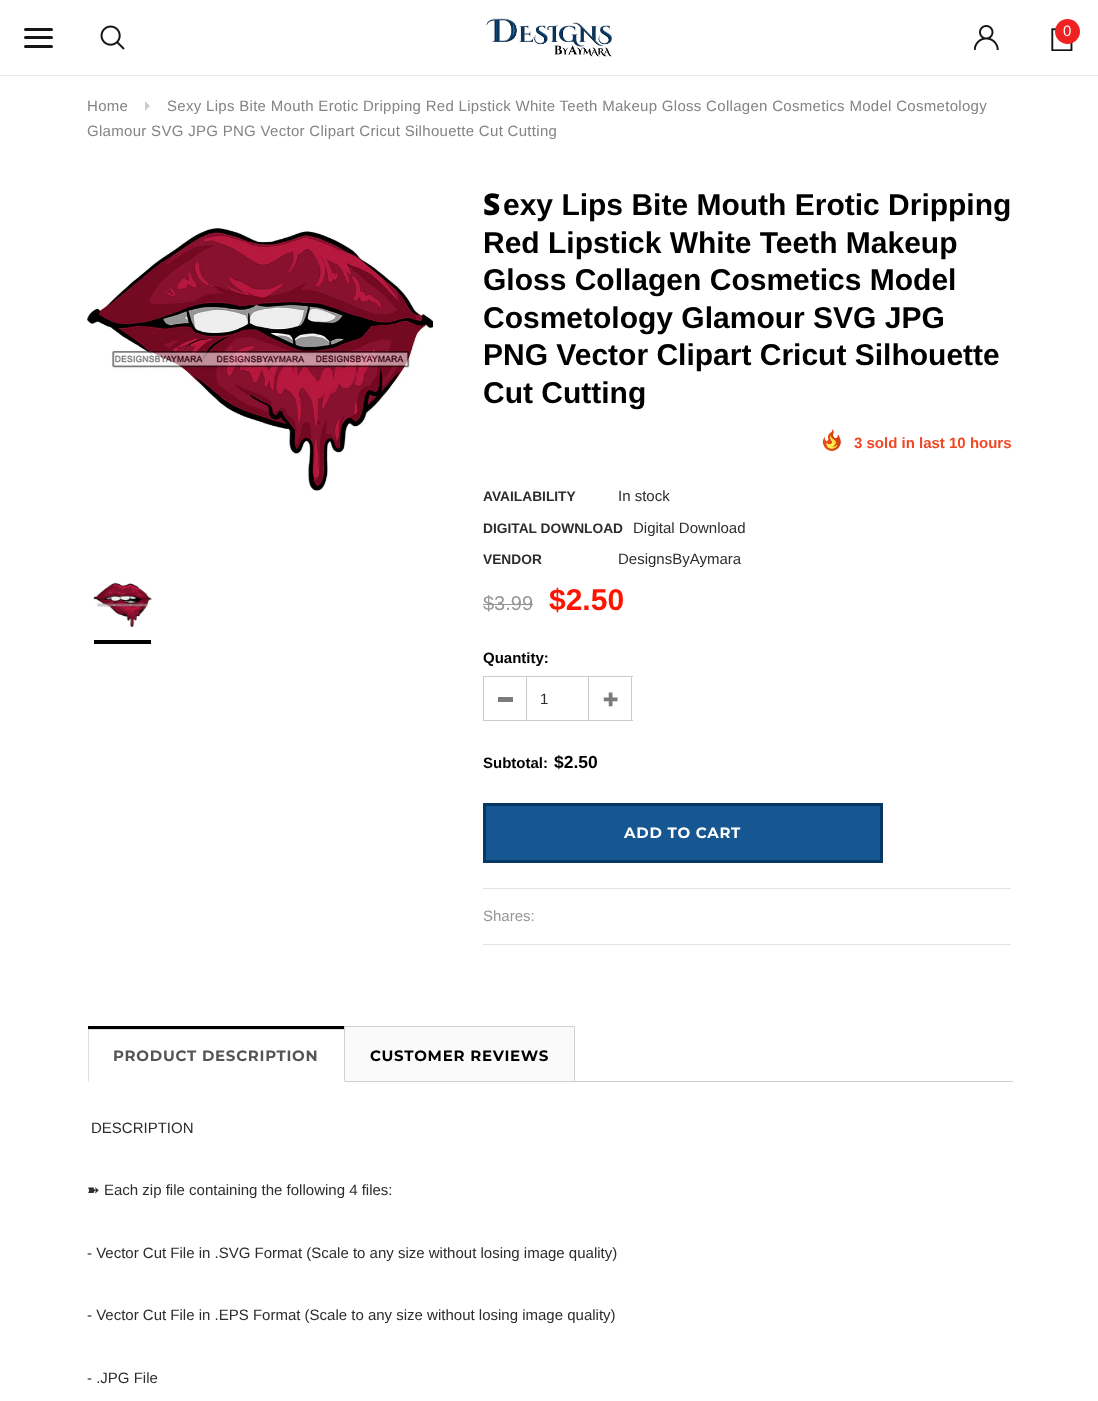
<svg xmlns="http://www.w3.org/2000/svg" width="1098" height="1401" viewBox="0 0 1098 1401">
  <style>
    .t1 { font: 15px Arimo; letter-spacing: 0.3px; fill: #fff; }
    .t2 { font: 15px Arimo; letter-spacing: 0.3px; fill: #848484; }
    .t3 { font: 900 30px Noto Sans; fill: #000; }
    .t4 { font: bold 30px Arimo; fill: #000; }
    .t5 { font: bold 15px Arimo; fill: #f04723; }
    .t6 { font: bold 13.75px Arimo; fill: #2d2d2d; }
    .t7 { font: 15px Arimo; fill: #2d2d2d; }
    .t8 { font: 20px Arimo; fill: #969696; }
    .t9 { font: bold 30px Arimo; fill: #ff1400; }
    .t10 { font: bold 15px Arimo; fill: #000; }
    .t11 { font: bold 17.5px Arimo; fill: #000; }
    .t12 { font: bold 15px Montserrat; letter-spacing: 0.75px; fill: #fff; }
    .t13 { font: 15px Arimo; fill: #969696; }
    .t14 { font: bold 15px Montserrat; letter-spacing: 0.75px; fill: #555; }
    .t15 { font: bold 15px Montserrat; letter-spacing: 0.75px; fill: #000; }
    .t16 { font: 15px DejaVu Sans; fill: #2d2d2d; }
  </style>
  <rect width="100%" height="100%" fill="#fff"/>
  <path d="M0 75V76H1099V1V75Z" fill="#ebebeb"/>
  <rect x="24" y="36" width="29" height="3" rx="1.5" fill="#161616"/>
  <rect x="24" y="28" width="29" height="3" rx="1.5" fill="#161616"/>
  <rect x="24" y="45" width="29" height="3" rx="1.5" fill="#161616"/>
  <image x="100" y="25" width="25" height="25" href="images/1.png"/>
  <image x="486" y="18" width="126" height="39" href="images/2.png"/>
  <image x="974" y="25" width="25" height="25" href="images/3.png"/>
  <image x="1051" y="23" width="22" height="28" href="images/4.png"/>
  <circle cx="1067.5" cy="31.5" r="12.5" fill="#f02121"/>
  <text x="1063" y="36" class="t1">0</text>
  <text x="87" y="111" class="t2">Home</text>
  <path d="M145 111V101L150 106Z" fill="#cbcbcb"/>
  <text x="167" y="111" class="t2">Sexy Lips Bite Mouth Erotic Dripping Red Lipstick White Teeth Makeup Gloss Collagen Cosmetics Model Cosmetology</text>
  <text x="87" y="136" class="t2">Glamour SVG JPG PNG Vector Clipart Cricut Silhouette Cut Cutting</text>
  <image x="87" y="228" width="346" height="263" href="images/5.png"/>
  <rect x="94" y="640" width="57" height="4" fill="#000"/>
  <image x="93" y="582" width="59" height="46" href="images/6.png"/>
  <text x="483" y="215" class="t3">S</text>
  <text x="503" y="215" class="t4">exy Lips Bite Mouth Erotic Dripping</text>
  <text x="483" y="253" class="t4">Red Lipstick White Teeth Makeup</text>
  <text x="483" y="290" class="t4">Gloss Collagen Cosmetics Model</text>
  <text x="483" y="328" class="t4">Cosmetology Glamour SVG JPG</text>
  <text x="483" y="365" class="t4">PNG Vector Clipart Cricut Silhouette</text>
  <text x="483" y="403" class="t4">Cut Cutting</text>
  <image x="822" y="429" width="20" height="23" href="images/7.png"/>
  <text x="854" y="448" class="t5">3 sold in last 10 hours</text>
  <text x="483" y="501" class="t6">AVAILABILITY</text>
  <text x="618" y="501" class="t7">In stock</text>
  <text x="483" y="533" class="t6">DIGITAL DOWNLOAD</text>
  <text x="633" y="533" class="t7">Digital Download</text>
  <text x="483" y="564" class="t6">VENDOR</text>
  <text x="618" y="564" class="t7">DesignsByAymara</text>
  <text x="483" y="610" class="t8">$3.99</text>
  <rect x="483" y="604" width="50" height="1" fill="#969696"/>
  <text x="549" y="610" class="t9">$2.50</text>
  <text x="483" y="663" class="t10">Quantity:</text>
  <rect x="498" y="697" width="15" height="5" fill="#7b7b7b"/>
  <rect x="483" y="676" width="43" height="1" fill="#cbcbcb"/>
  <rect x="483" y="720" width="43" height="1" fill="#cbcbcb"/>
  <rect x="483" y="676" width="1" height="45" fill="#cbcbcb"/>
  <rect x="526.5" y="676.5" width="62" height="44" fill="none" stroke="#cbcbcb"/>
  <text x="540" y="704" class="t7">1</text>
  <image x="603" y="692" width="15" height="15" href="images/8.png"/>
  <rect x="589" y="676" width="44" height="1" fill="#cbcbcb"/>
  <rect x="631" y="676" width="1" height="45" fill="#cbcbcb"/>
  <rect x="589" y="720" width="44" height="1" fill="#cbcbcb"/>
  <text x="483" y="768" class="t10">Subtotal:</text>
  <text x="554" y="768" class="t11">$2.50</text>
  <rect x="484.5" y="804.5" width="397" height="57" fill="#165792" stroke="#073763" stroke-width="3"/>
  <text x="624" y="838" class="t12">ADD TO CART</text>
  <rect x="483" y="888" width="528" height="1" fill="#e3e3e3"/>
  <rect x="483" y="944" width="528" height="1" fill="#e3e3e3"/>
  <text x="483" y="921" class="t13">Shares:</text>
  <rect x="345" y="1081" width="668" height="1" fill="#d0d0d0"/>
  <rect x="88" y="1026" width="257" height="3" fill="#000"/>
  <rect x="88" y="1029" width="257" height="1" fill="#ddd"/>
  <path d="M345 1029V1082L344 1081V1030Z" fill="#ddd"/>
  <path d="M88 1082V1029L89 1030V1081Z" fill="#ddd"/>
  <text x="113" y="1061" class="t14">PRODUCT DESCRIPTION</text>
  <rect x="345" y="1027" width="229" height="54" fill="#fafafa"/>
  <rect x="344" y="1026" width="231" height="1" fill="#d0d0d0"/>
  <rect x="574" y="1026" width="1" height="55" fill="#d0d0d0"/>
  <rect x="344" y="1026" width="1" height="55" fill="#d0d0d0"/>
  <text x="370" y="1061" class="t15">CUSTOMER REVIEWS</text>
  <text x="91" y="1133" class="t7">DESCRIPTION</text>
  <text x="87" y="1195" class="t16">➽</text>
  <text x="104" y="1195" class="t7">Each zip file containing the following 4 files:</text>
  <text x="87" y="1258" class="t7">- Vector Cut File in .SVG Format (Scale to any size without losing image quality)</text>
  <text x="87" y="1320" class="t7">- Vector Cut File in .EPS Format (Scale to any size without losing image quality)</text>
  <text x="87" y="1383" class="t7">- .JPG File</text>
</svg>
